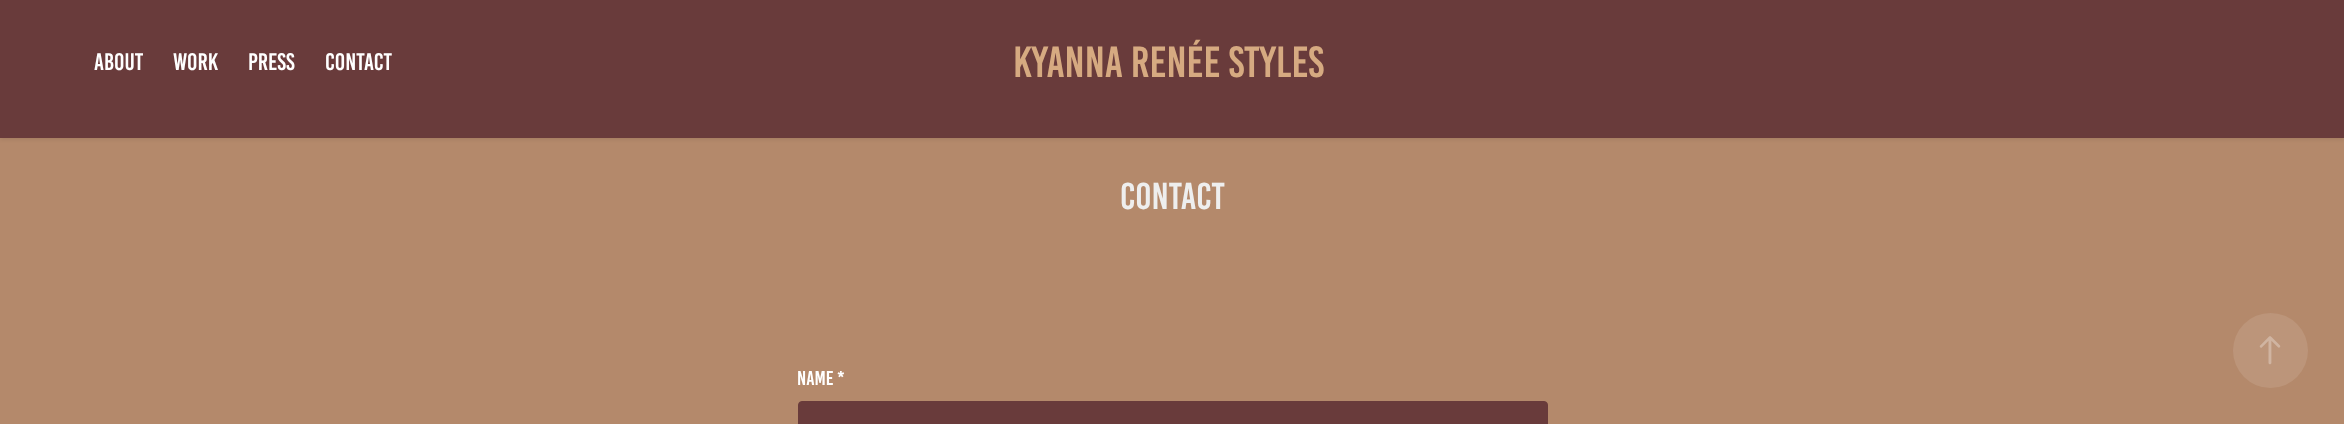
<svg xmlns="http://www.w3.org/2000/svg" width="2344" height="424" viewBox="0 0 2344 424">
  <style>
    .t1 { font: 24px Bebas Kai; fill: #fff; }
    .t2 { font: 43.75px Bebas Kai; fill: #d6aa81; }
    .t3 { font: 37.5px Bebas Kai; fill: #eee; }
    .t4 { font: 20px Bebas Kai; fill: #fff; }
  </style>
  <rect width="100%" height="100%" fill="#b4896b"/>
  <rect x="0" y="1" width="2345" height="138" fill="#0000001a" filter="blur(2px)"/>
  <rect x="0" y="0" width="2344" height="138" fill="#693b3b"/>
  <text x="94" y="70" class="t1">ABOUT</text>
  <text x="173" y="70" class="t1">WORK</text>
  <text x="248" y="70" class="t1">PRESS</text>
  <text x="325" y="70" class="t1">CONTACT</text>
  <text x="1013" y="77" class="t2">Kyanna Renée Styles</text>
  <text x="1120" y="209" class="t3">Contact</text>
  <text x="797" y="385" class="t4">Name *</text>
  <rect x="798.5" y="401.5" width="749" height="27" rx="3.5" fill="#693b3b" stroke="#693b3b"/>
  <circle cx="2270.5" cy="350.5" r="37.5" fill="#bc957a"/>
  <image x="2259" y="336" width="22" height="29" href="images/1.png"/>
</svg>
